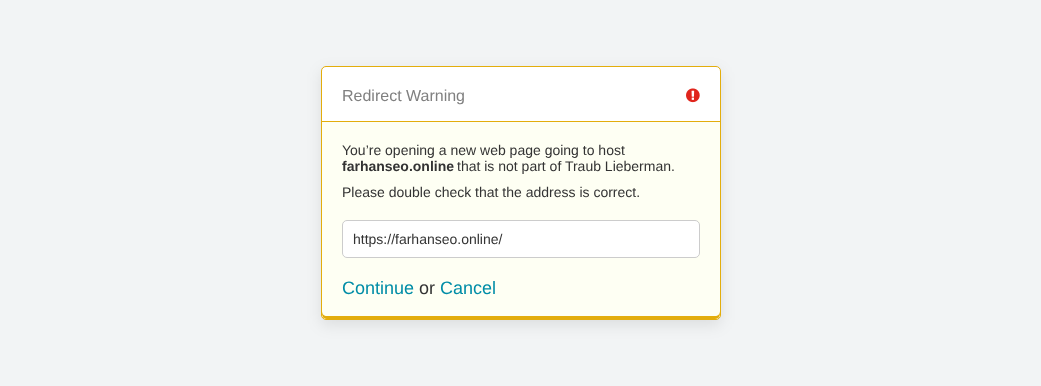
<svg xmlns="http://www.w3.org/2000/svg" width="1041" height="386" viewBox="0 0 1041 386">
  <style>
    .t1 { font: 16px Liberation Sans; fill: #808080; }
    .t2 { font: 14px Liberation Sans; fill: #333; }
    .t3 { font: bold 14px Liberation Sans; fill: #333; }
    .t4 { font: 18px Liberation Sans; fill: #008da7; }
    .t5 { font: 18px Liberation Sans; fill: #333; }
  </style>
  <rect width="100%" height="100%" fill="#f2f4f5"/>
  <rect x="321" y="71" width="400" height="254" rx="5" fill="#00000017" filter="blur(7.5px)"/>
  <rect x="321.5" y="66.5" width="399" height="253" rx="4.5" fill="#fff" stroke="#e3ad0c"/>
  <text x="342" y="101" class="t1">Redirect Warning</text>
  <image x="686" y="88" width="14" height="15" href="images/1.png"/>
  <path d="M322 121H720V314C720 317 718 319 715 319H327C324 319 322 317 322 314Z" fill="#fefff3"/>
  <path d="M322 311C322 315 322 319 327 319H715C720 319 720 315 720 311C720 314 718 316 715 316H327C324 316 322 314 322 311Z" fill="#e3ad0c"/>
  <rect x="322" y="121" width="398" height="1" fill="#e3ad0c"/>
  <text x="342" y="155" class="t2">You’re opening a new web page going to host</text>
  <text x="342" y="171" class="t3">farhanseo.online</text>
  <text x="457" y="171" class="t2">that is not part of Traub Lieberman.</text>
  <text x="342" y="197" class="t2">Please double check that the address is correct.</text>
  <rect x="342.5" y="220.5" width="357" height="37" rx="4.5" fill="#fff" stroke="#ccc"/>
  <text x="353" y="244" class="t2">https://farhanseo.online/</text>
  <text x="342" y="294" class="t4">Continue</text>
  <text x="419" y="294" class="t5">or</text>
  <text x="440" y="294" class="t4">Cancel</text>
</svg>
